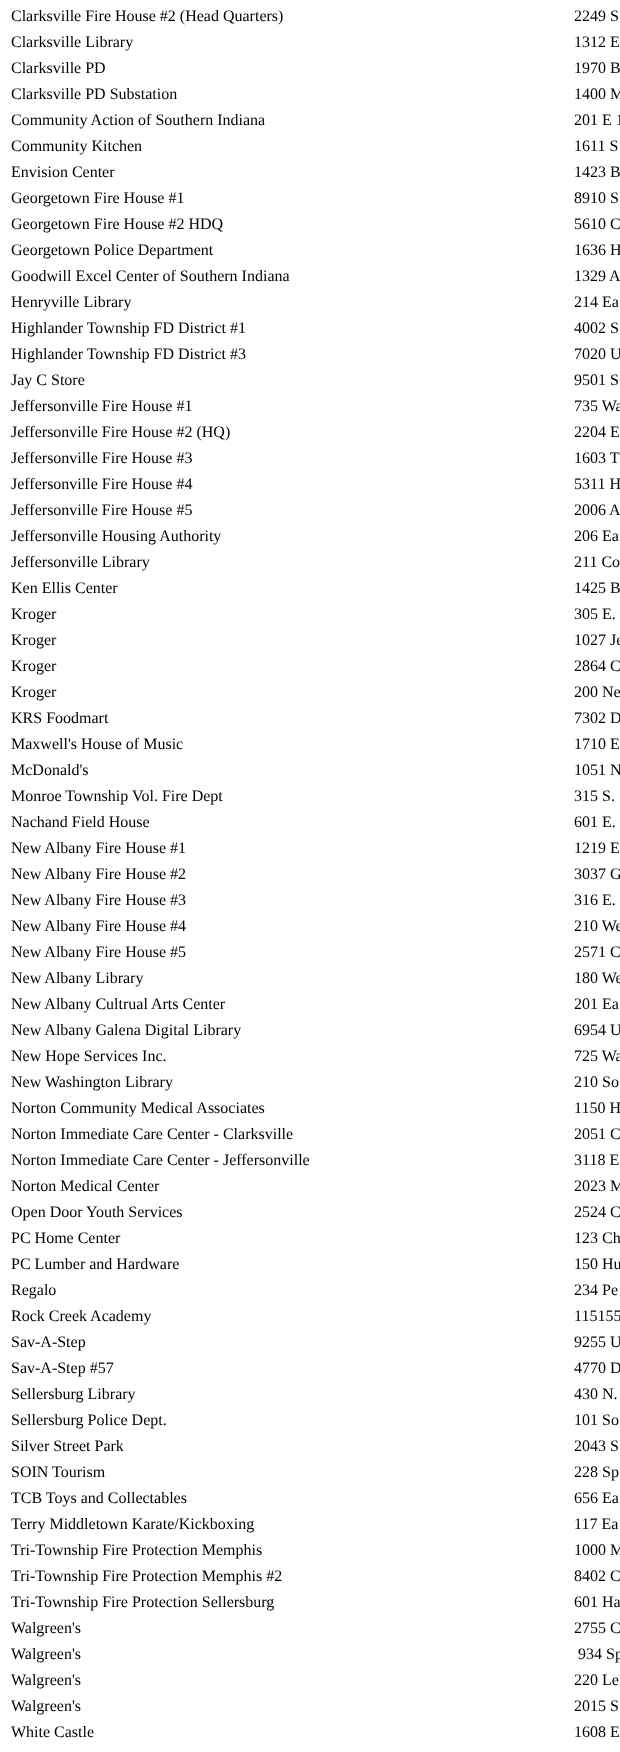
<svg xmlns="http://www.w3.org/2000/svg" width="620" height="1752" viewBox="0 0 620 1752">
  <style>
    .t1 { font: 16px Liberation Serif; fill: #000; }
  </style>
  <rect width="100%" height="100%" fill="#fff"/>
  <text x="11" y="21" class="t1">Clarksville Fire House #2 (Head Quarters)</text>
  <text x="574" y="21" class="t1">2249 S</text>
  <text x="11" y="47" class="t1">Clarksville Library</text>
  <text x="574" y="47" class="t1">1312 E</text>
  <text x="11" y="73" class="t1">Clarksville PD</text>
  <text x="574" y="73" class="t1">1970 B</text>
  <text x="11" y="99" class="t1">Clarksville PD Substation</text>
  <text x="574" y="99" class="t1">1400 M</text>
  <text x="11" y="125" class="t1">Community Action of Southern Indiana</text>
  <text x="574" y="125" class="t1">201 E 1</text>
  <text x="11" y="151" class="t1">Community Kitchen</text>
  <text x="574" y="151" class="t1">1611 S</text>
  <text x="11" y="177" class="t1">Envision Center</text>
  <text x="574" y="177" class="t1">1423 B</text>
  <text x="11" y="203" class="t1">Georgetown Fire House #1</text>
  <text x="574" y="203" class="t1">8910 S</text>
  <text x="11" y="229" class="t1">Georgetown Fire House #2 HDQ</text>
  <text x="574" y="229" class="t1">5610 C</text>
  <text x="11" y="255" class="t1">Georgetown Police Department</text>
  <text x="574" y="255" class="t1">1636 H</text>
  <text x="11" y="281" class="t1">Goodwill Excel Center of Southern Indiana</text>
  <text x="574" y="281" class="t1">1329 A</text>
  <text x="11" y="307" class="t1">Henryville Library</text>
  <text x="574" y="307" class="t1">214 Ea</text>
  <text x="11" y="333" class="t1">Highlander Township FD District #1</text>
  <text x="574" y="333" class="t1">4002 S</text>
  <text x="11" y="359" class="t1">Highlander Township FD District #3</text>
  <text x="574" y="359" class="t1">7020 U</text>
  <text x="11" y="385" class="t1">Jay C Store</text>
  <text x="574" y="385" class="t1">9501 S</text>
  <text x="11" y="411" class="t1">Jeffersonville Fire House #1</text>
  <text x="574" y="411" class="t1">735 Wa</text>
  <text x="11" y="437" class="t1">Jeffersonville Fire House #2 (HQ)</text>
  <text x="574" y="437" class="t1">2204 E</text>
  <text x="11" y="463" class="t1">Jeffersonville Fire House #3</text>
  <text x="574" y="463" class="t1">1603 T</text>
  <text x="11" y="489" class="t1">Jeffersonville Fire House #4</text>
  <text x="574" y="489" class="t1">5311 H</text>
  <text x="11" y="515" class="t1">Jeffersonville Fire House #5</text>
  <text x="574" y="515" class="t1">2006 A</text>
  <text x="11" y="541" class="t1">Jeffersonville Housing Authority</text>
  <text x="574" y="541" class="t1">206 Ea</text>
  <text x="11" y="567" class="t1">Jeffersonville Library</text>
  <text x="574" y="567" class="t1">211 Co</text>
  <text x="11" y="593" class="t1">Ken Ellis Center</text>
  <text x="574" y="593" class="t1">1425 B</text>
  <text x="11" y="619" class="t1">Kroger</text>
  <text x="574" y="619" class="t1">305 E.</text>
  <text x="11" y="645" class="t1">Kroger</text>
  <text x="574" y="645" class="t1">1027 Je</text>
  <text x="11" y="671" class="t1">Kroger</text>
  <text x="574" y="671" class="t1">2864 C</text>
  <text x="11" y="697" class="t1">Kroger</text>
  <text x="574" y="697" class="t1">200 Ne</text>
  <text x="11" y="723" class="t1">KRS Foodmart</text>
  <text x="574" y="723" class="t1">7302 D</text>
  <text x="11" y="749" class="t1">Maxwell's House of Music</text>
  <text x="574" y="749" class="t1">1710 E</text>
  <text x="11" y="775" class="t1">McDonald's</text>
  <text x="574" y="775" class="t1">1051 N</text>
  <text x="11" y="801" class="t1">Monroe Township Vol. Fire Dept</text>
  <text x="574" y="801" class="t1">315 S.</text>
  <text x="11" y="827" class="t1">Nachand Field House</text>
  <text x="574" y="827" class="t1">601 E.</text>
  <text x="11" y="853" class="t1">New Albany Fire House #1</text>
  <text x="574" y="853" class="t1">1219 E</text>
  <text x="11" y="879" class="t1">New Albany Fire House #2</text>
  <text x="574" y="879" class="t1">3037 G</text>
  <text x="11" y="905" class="t1">New Albany Fire House #3</text>
  <text x="574" y="905" class="t1">316 E.</text>
  <text x="11" y="931" class="t1">New Albany Fire House #4</text>
  <text x="574" y="931" class="t1">210 We</text>
  <text x="11" y="957" class="t1">New Albany Fire House #5</text>
  <text x="574" y="957" class="t1">2571 C</text>
  <text x="11" y="983" class="t1">New Albany Library</text>
  <text x="574" y="983" class="t1">180 We</text>
  <text x="11" y="1009" class="t1">New Albany Cultrual Arts Center</text>
  <text x="574" y="1009" class="t1">201 Ea</text>
  <text x="11" y="1035" class="t1">New Albany Galena Digital Library</text>
  <text x="574" y="1035" class="t1">6954 U</text>
  <text x="11" y="1061" class="t1">New Hope Services Inc.</text>
  <text x="574" y="1061" class="t1">725 Wa</text>
  <text x="11" y="1087" class="t1">New Washington Library</text>
  <text x="574" y="1087" class="t1">210 So</text>
  <text x="11" y="1113" class="t1">Norton Community Medical Associates</text>
  <text x="574" y="1113" class="t1">1150 H</text>
  <text x="11" y="1139" class="t1">Norton Immediate Care Center - Clarksville</text>
  <text x="574" y="1139" class="t1">2051 C</text>
  <text x="11" y="1165" class="t1">Norton Immediate Care Center - Jeffersonville</text>
  <text x="574" y="1165" class="t1">3118 E</text>
  <text x="11" y="1191" class="t1">Norton Medical Center</text>
  <text x="574" y="1191" class="t1">2023 M</text>
  <text x="11" y="1217" class="t1">Open Door Youth Services</text>
  <text x="574" y="1217" class="t1">2524 C</text>
  <text x="11" y="1243" class="t1">PC Home Center</text>
  <text x="574" y="1243" class="t1">123 Ch</text>
  <text x="11" y="1269" class="t1">PC Lumber and Hardware</text>
  <text x="574" y="1269" class="t1">150 Hu</text>
  <text x="11" y="1295" class="t1">Regalo</text>
  <text x="574" y="1295" class="t1">234 Pe</text>
  <text x="11" y="1321" class="t1">Rock Creek Academy</text>
  <text x="574" y="1321" class="t1">115155</text>
  <text x="11" y="1347" class="t1">Sav-A-Step</text>
  <text x="574" y="1347" class="t1">9255 U</text>
  <text x="11" y="1373" class="t1">Sav-A-Step #57</text>
  <text x="574" y="1373" class="t1">4770 D</text>
  <text x="11" y="1399" class="t1">Sellersburg Library</text>
  <text x="574" y="1399" class="t1">430 N.</text>
  <text x="11" y="1425" class="t1">Sellersburg Police Dept.</text>
  <text x="574" y="1425" class="t1">101 So</text>
  <text x="11" y="1451" class="t1">Silver Street Park</text>
  <text x="574" y="1451" class="t1">2043 S</text>
  <text x="11" y="1477" class="t1">SOIN Tourism</text>
  <text x="574" y="1477" class="t1">228 Sp</text>
  <text x="11" y="1503" class="t1">TCB Toys and Collectables</text>
  <text x="574" y="1503" class="t1">656 Ea</text>
  <text x="11" y="1529" class="t1">Terry Middletown Karate/Kickboxing</text>
  <text x="574" y="1529" class="t1">117 Ea</text>
  <text x="11" y="1555" class="t1">Tri-Township Fire Protection Memphis</text>
  <text x="574" y="1555" class="t1">1000 M</text>
  <text x="11" y="1581" class="t1">Tri-Township Fire Protection Memphis #2</text>
  <text x="574" y="1581" class="t1">8402 C</text>
  <text x="11" y="1607" class="t1">Tri-Township Fire Protection Sellersburg</text>
  <text x="574" y="1607" class="t1">601 Ha</text>
  <text x="11" y="1633" class="t1">Walgreen's</text>
  <text x="574" y="1633" class="t1">2755 C</text>
  <text x="11" y="1659" class="t1">Walgreen's</text>
  <text x="578" y="1659" class="t1">934 Sp</text>
  <text x="11" y="1685" class="t1">Walgreen's</text>
  <text x="574" y="1685" class="t1">220 Le</text>
  <text x="11" y="1711" class="t1">Walgreen's</text>
  <text x="574" y="1711" class="t1">2015 S</text>
  <text x="11" y="1737" class="t1">White Castle</text>
  <text x="574" y="1737" class="t1">1608 E</text>
</svg>
